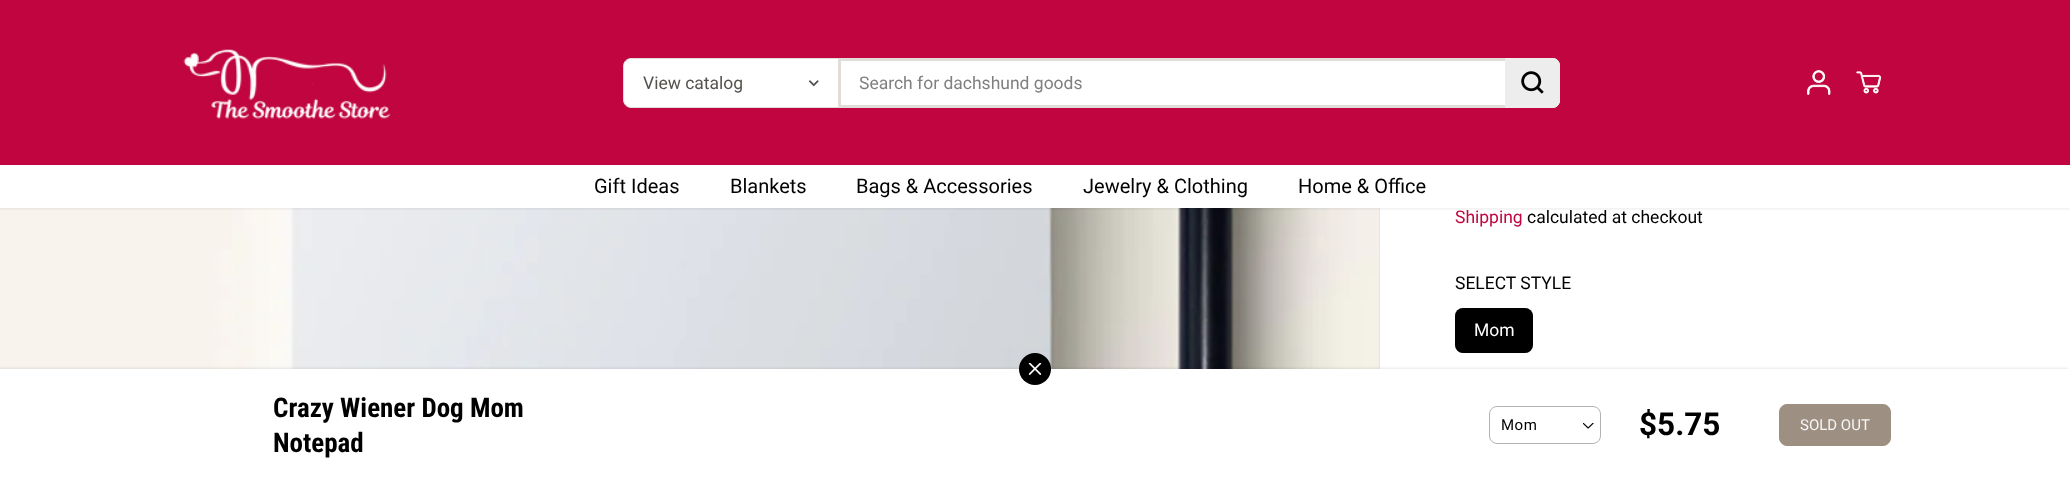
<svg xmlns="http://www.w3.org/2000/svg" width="2070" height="482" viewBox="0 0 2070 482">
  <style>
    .t1 { font: 17.5px Roboto; fill: #55524e; }
    .t2 { font: 17.5px Roboto; fill: #808080; }
    .t3 { font: 20px Roboto; fill: #000; }
    .t4 { font: 17.5px Roboto; fill: #c00540; }
    .t5 { font: 17.5px Roboto; fill: #000; }
    .t6 { font: 17.5px Roboto; fill: #fff; }
    .t7 { font: bold 27px Roboto Condensed; fill: #000; }
    .t8 { font: 15px Roboto; letter-spacing: 0.5px; fill: #000; }
    .t9 { font: bold 31.5px Roboto; fill: #000; }
    .t10 { font: 15px Roboto; fill: #f7f7f7; }
  </style>
  <defs>
    <clipPath id="clip1"><rect x="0" y="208" width="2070" height="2"/></clipPath>
  </defs>
  <rect width="100%" height="100%" fill="#fff"/>
  <rect x="0" y="0" width="2070" height="165" fill="#c00540"/>
  <rect x="1379" y="208" width="1" height="161" fill="#e6e6e6"/>
  <rect x="1378" y="208" width="1" height="161" fill="#f3efec"/>
  <image x="0" y="208" width="1379" height="161" href="images/6.png"/>
  <g clip-path="url(#clip1)">
    <rect x="0" y="3" width="2070" height="207" fill="#0000000d" filter="blur(1px)"/>
  </g>
  <image x="183" y="49" width="208" height="70" href="images/1.png"/>
  <path d="M631 58.5H838.5V107.5H631C627 107.5 623.5 104 623.5 100V66C623.5 62 627 58.5 631 58.5Z" fill="#fff" stroke="#e1dcd8"/>
  <text x="643" y="89" class="t1">View catalog</text>
  <image x="809" y="80" width="10" height="7" href="images/2.png"/>
  <path d="M838 58H1552C1556.5 58 1560 61.5 1560 66V100C1560 104.5 1556.5 108 1552 108H838Z" fill="#fff"/>
  <path d="M838 58V108H1552C1556 108 1560 104 1560 100V66C1560 62 1556 58 1552 58ZM841 61V105H1557V61Z" fill="#e1dcd8" fill-rule="evenodd"/>
  <text x="859" y="89" class="t2">Search for dachshund goods</text>
  <path d="M1505 58H1552C1556.5 58 1560 61.5 1560 66V100C1560 104.5 1556.5 108 1552 108H1505Z" fill="#ededed"/>
  <image x="1521" y="71" width="23" height="23" href="images/3.png"/>
  <image x="1807" y="70" width="24" height="25" href="images/4.png"/>
  <image x="1856" y="71" width="25" height="23" href="images/5.png"/>
  <rect x="0" y="207" width="2070" height="1" fill="#fff"/>
  <text x="594" y="193" class="t3">Gift Ideas</text>
  <text x="730" y="193" class="t3">Blankets</text>
  <text x="856" y="193" class="t3">Bags &amp; Accessories</text>
  <text x="1083" y="193" class="t3">Jewelry &amp; Clothing</text>
  <text x="1298" y="193" class="t3">Home &amp; Office</text>
  <text x="1455" y="223" class="t4">Shipping</text>
  <text x="1527" y="223" class="t5">calculated at checkout</text>
  <text x="1455" y="289" class="t5">SELECT STYLE</text>
  <rect x="1455" y="308" width="78" height="45" rx="8" fill="#000"/>
  <rect x="1455.5" y="308.5" width="77" height="44" rx="7.5" fill="none" stroke="#0000004d"/>
  <text x="1474" y="336" class="t6">Mom</text>
  <rect x="-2" y="368" width="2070" height="113" fill="#00000017" filter="blur(1px)"/>
  <rect x="0" y="369" width="2069" height="113" fill="#fff"/>
  <text x="273" y="417" class="t7">Crazy Wiener Dog Mom</text>
  <text x="273" y="452" class="t7">Notepad</text>
  <circle cx="1035" cy="369" r="16" fill="#000"/>
  <image x="1028" y="363" width="14" height="12" href="images/7.png"/>
  <image x="1583" y="423" width="11" height="6" href="images/8.png"/>
  <rect x="1489.5" y="406.5" width="111" height="37" rx="7.5" fill="none" stroke="#b3b3b3"/>
  <text x="1501" y="430" class="t8">Mom</text>
  <text x="1639" y="435" class="t9">$5.75</text>
  <rect x="1779.5" y="404.5" width="111" height="41" rx="7.5" fill="#9e8f83" stroke="#9e8f83"/>
  <text x="1800" y="430" class="t10">SOLD OUT</text>
</svg>
